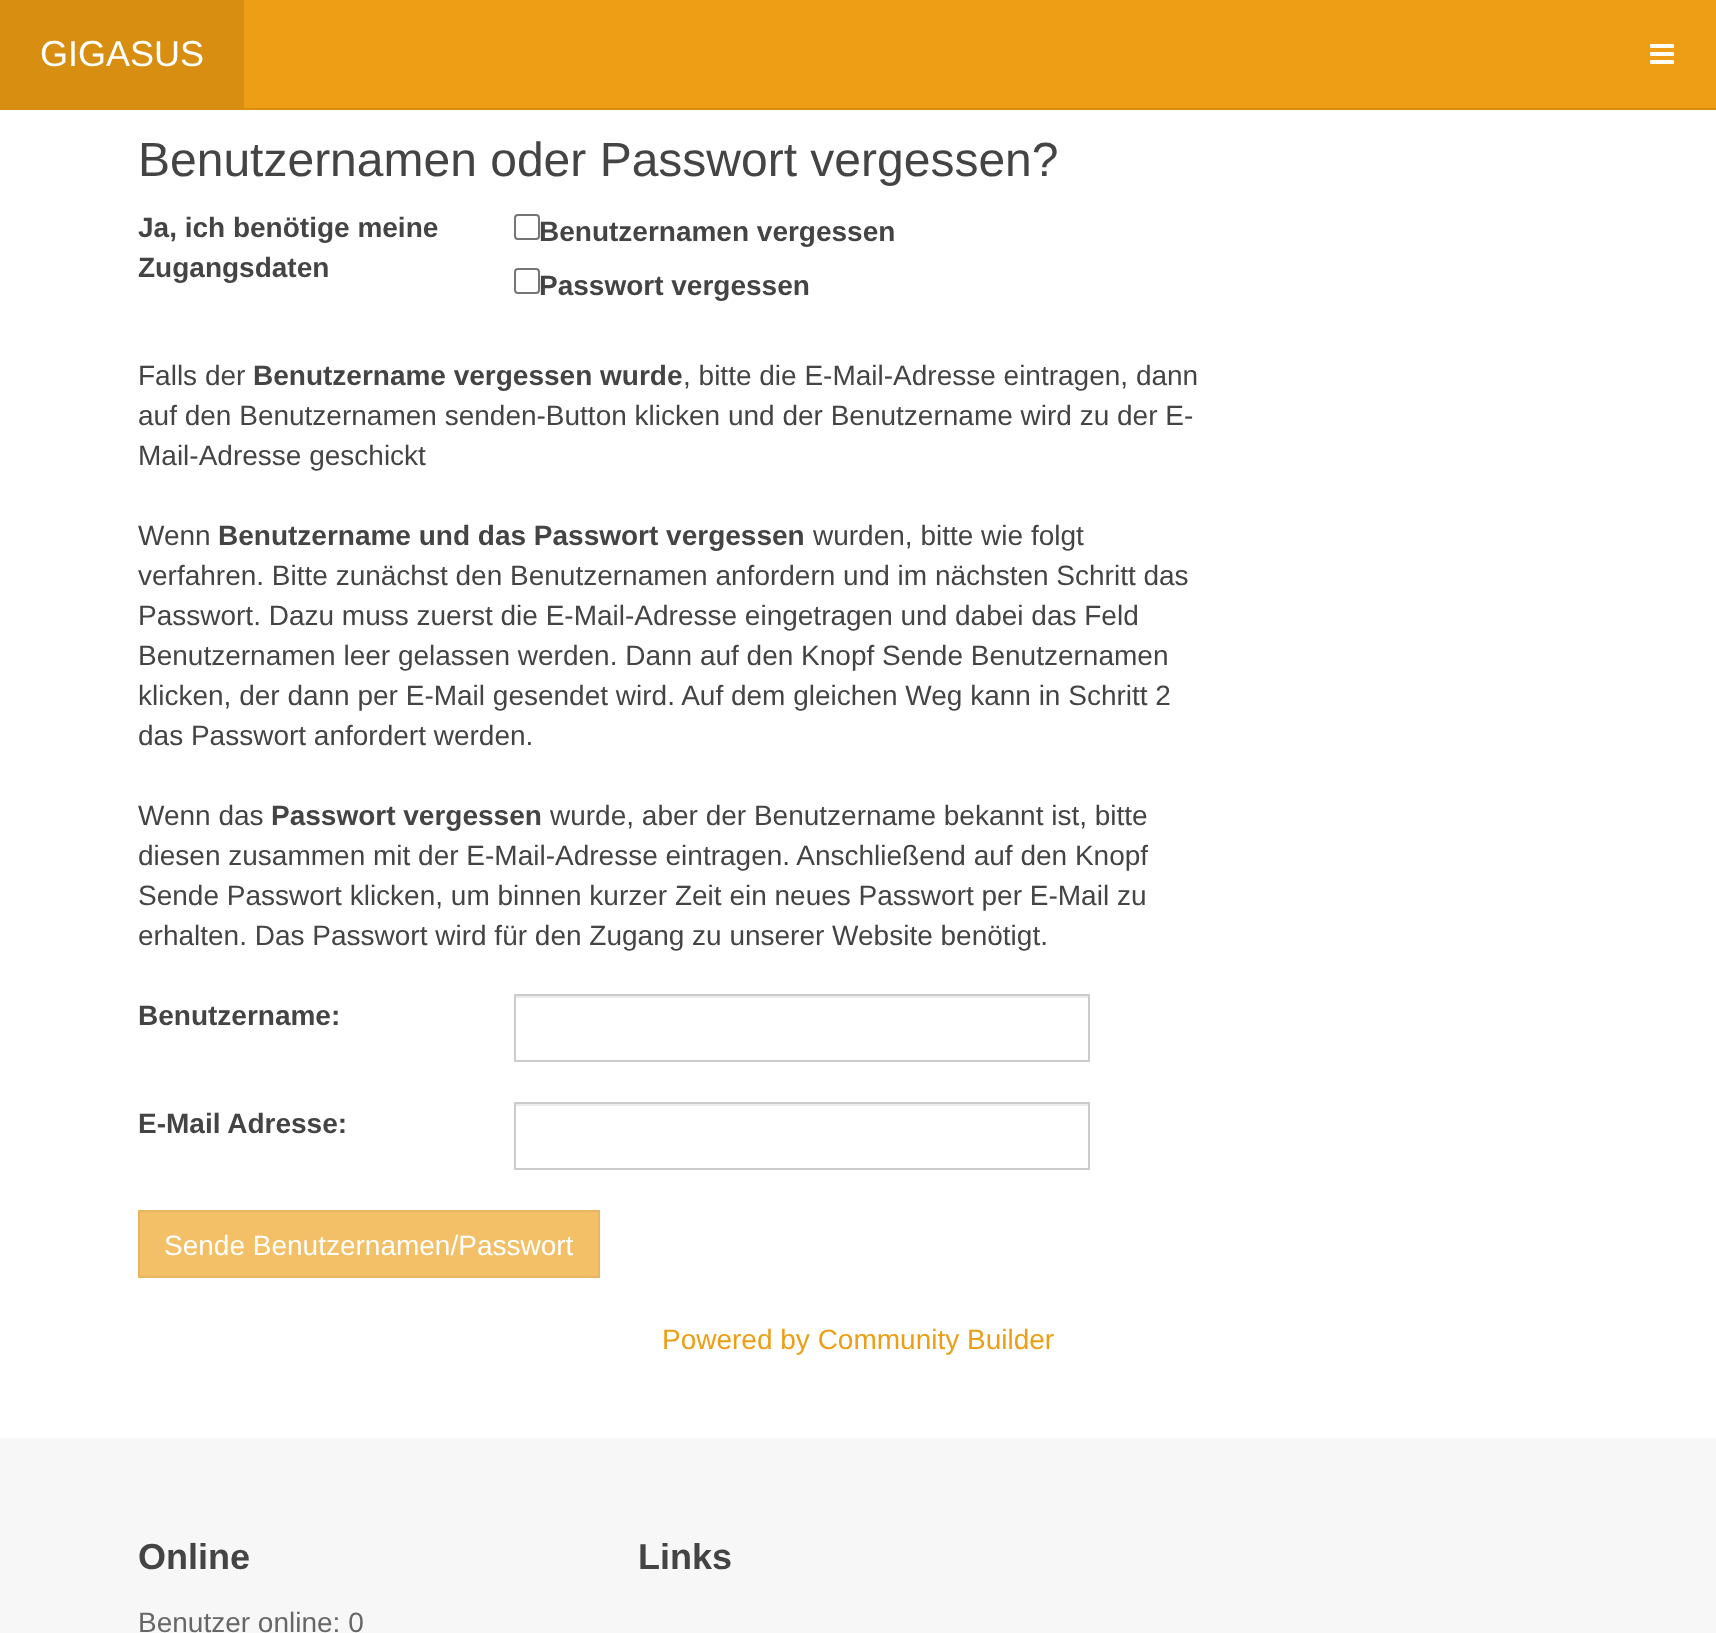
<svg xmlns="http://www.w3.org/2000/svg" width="1716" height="1633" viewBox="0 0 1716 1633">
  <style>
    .t1 { font: 36px Liberation Sans; fill: #fff; }
    .t2 { font: 48px Liberation Sans; fill: #444; }
    .t3 { font: bold 28px Liberation Sans; fill: #444; }
    .t4 { font: 28px Liberation Sans; fill: #444; }
    .t5 { font: 28px Liberation Sans; fill: #fff; }
    .t6 { font: 28px Liberation Sans; fill: #ed9e15; }
    .t7 { font: bold 36px Liberation Sans; fill: #444; }
    .t8 { font: 28px Liberation Sans; fill: #666; }
  </style>
  <rect width="100%" height="100%" fill="#fff"/>
  <rect x="244" y="0" width="1472" height="108" fill="#ed9e15"/>
  <rect x="244" y="108" width="1472" height="2" fill="#d88f11"/>
  <rect x="0" y="0" width="244" height="110" fill="#d88f11"/>
  <text x="40" y="66" class="t1">GIGASUS</text>
  <image x="1650" y="44" width="24" height="20" href="images/1.png"/>
  <text x="138" y="176" class="t2">Benutzernamen oder Passwort vergessen?</text>
  <text x="138" y="237" class="t3">Ja, ich benötige meine</text>
  <text x="138" y="277" class="t3">Zugangsdaten</text>
  <rect x="515" y="215" width="24" height="24" rx="3" fill="none" stroke="#767676" stroke-width="2"/>
  <text x="539" y="241" class="t3">Benutzernamen vergessen</text>
  <rect x="515" y="269" width="24" height="24" rx="3" fill="none" stroke="#767676" stroke-width="2"/>
  <text x="539" y="295" class="t3">Passwort vergessen</text>
  <text x="138" y="385" class="t4">Falls der</text>
  <text x="253" y="385" class="t3">Benutzername vergessen wurde</text>
  <text x="683" y="385" class="t4">, bitte die E-Mail-Adresse eintragen, dann</text>
  <text x="138" y="425" class="t4">auf den Benutzernamen senden-Button klicken und der Benutzername wird zu der E-</text>
  <text x="138" y="465" class="t4">Mail-Adresse geschickt</text>
  <text x="138" y="545" class="t4">Wenn</text>
  <text x="218" y="545" class="t3">Benutzername und das Passwort vergessen</text>
  <text x="813" y="545" class="t4">wurden, bitte wie folgt</text>
  <text x="138" y="585" class="t4">verfahren. Bitte zunächst den Benutzernamen anfordern und im nächsten Schritt das</text>
  <text x="138" y="625" class="t4">Passwort. Dazu muss zuerst die E-Mail-Adresse eingetragen und dabei das Feld</text>
  <text x="138" y="665" class="t4">Benutzernamen leer gelassen werden. Dann auf den Knopf Sende Benutzernamen</text>
  <text x="138" y="705" class="t4">klicken, der dann per E-Mail gesendet wird. Auf dem gleichen Weg kann in Schritt 2</text>
  <text x="138" y="745" class="t4">das Passwort anfordert werden.</text>
  <text x="138" y="825" class="t4">Wenn das</text>
  <text x="271" y="825" class="t3">Passwort vergessen</text>
  <text x="550" y="825" class="t4">wurde, aber der Benutzername bekannt ist, bitte</text>
  <text x="138" y="865" class="t4">diesen zusammen mit der E-Mail-Adresse eintragen. Anschließend auf den Knopf</text>
  <text x="138" y="905" class="t4">Sende Passwort klicken, um binnen kurzer Zeit ein neues Passwort per E-Mail zu</text>
  <text x="138" y="945" class="t4">erhalten. Das Passwort wird für den Zugang zu unserer Website benötigt.</text>
  <text x="138" y="1025" class="t3">Benutzername:</text>
  <rect x="516" y="996" width="572" height="2" fill="#ececec"/>
  <rect x="515" y="995" width="574" height="66" fill="none" stroke="#ccc" stroke-width="2"/>
  <text x="138" y="1133" class="t3">E-Mail Adresse:</text>
  <rect x="516" y="1104" width="572" height="2" fill="#ececec"/>
  <rect x="515" y="1103" width="574" height="66" fill="none" stroke="#ccc" stroke-width="2"/>
  <rect x="139" y="1211" width="460" height="66" fill="#f3c067" stroke="#e6b664" stroke-width="2"/>
  <text x="164" y="1255" class="t5">Sende Benutzernamen/Passwort</text>
  <text x="662" y="1349" class="t6">Powered by Community Builder</text>
  <rect x="0" y="1438" width="1716" height="195" fill="#f7f7f7"/>
  <text x="138" y="1569" class="t7">Online</text>
  <text x="138" y="1632" class="t8">Benutzer online: 0</text>
  <text x="638" y="1569" class="t7">Links</text>
</svg>
